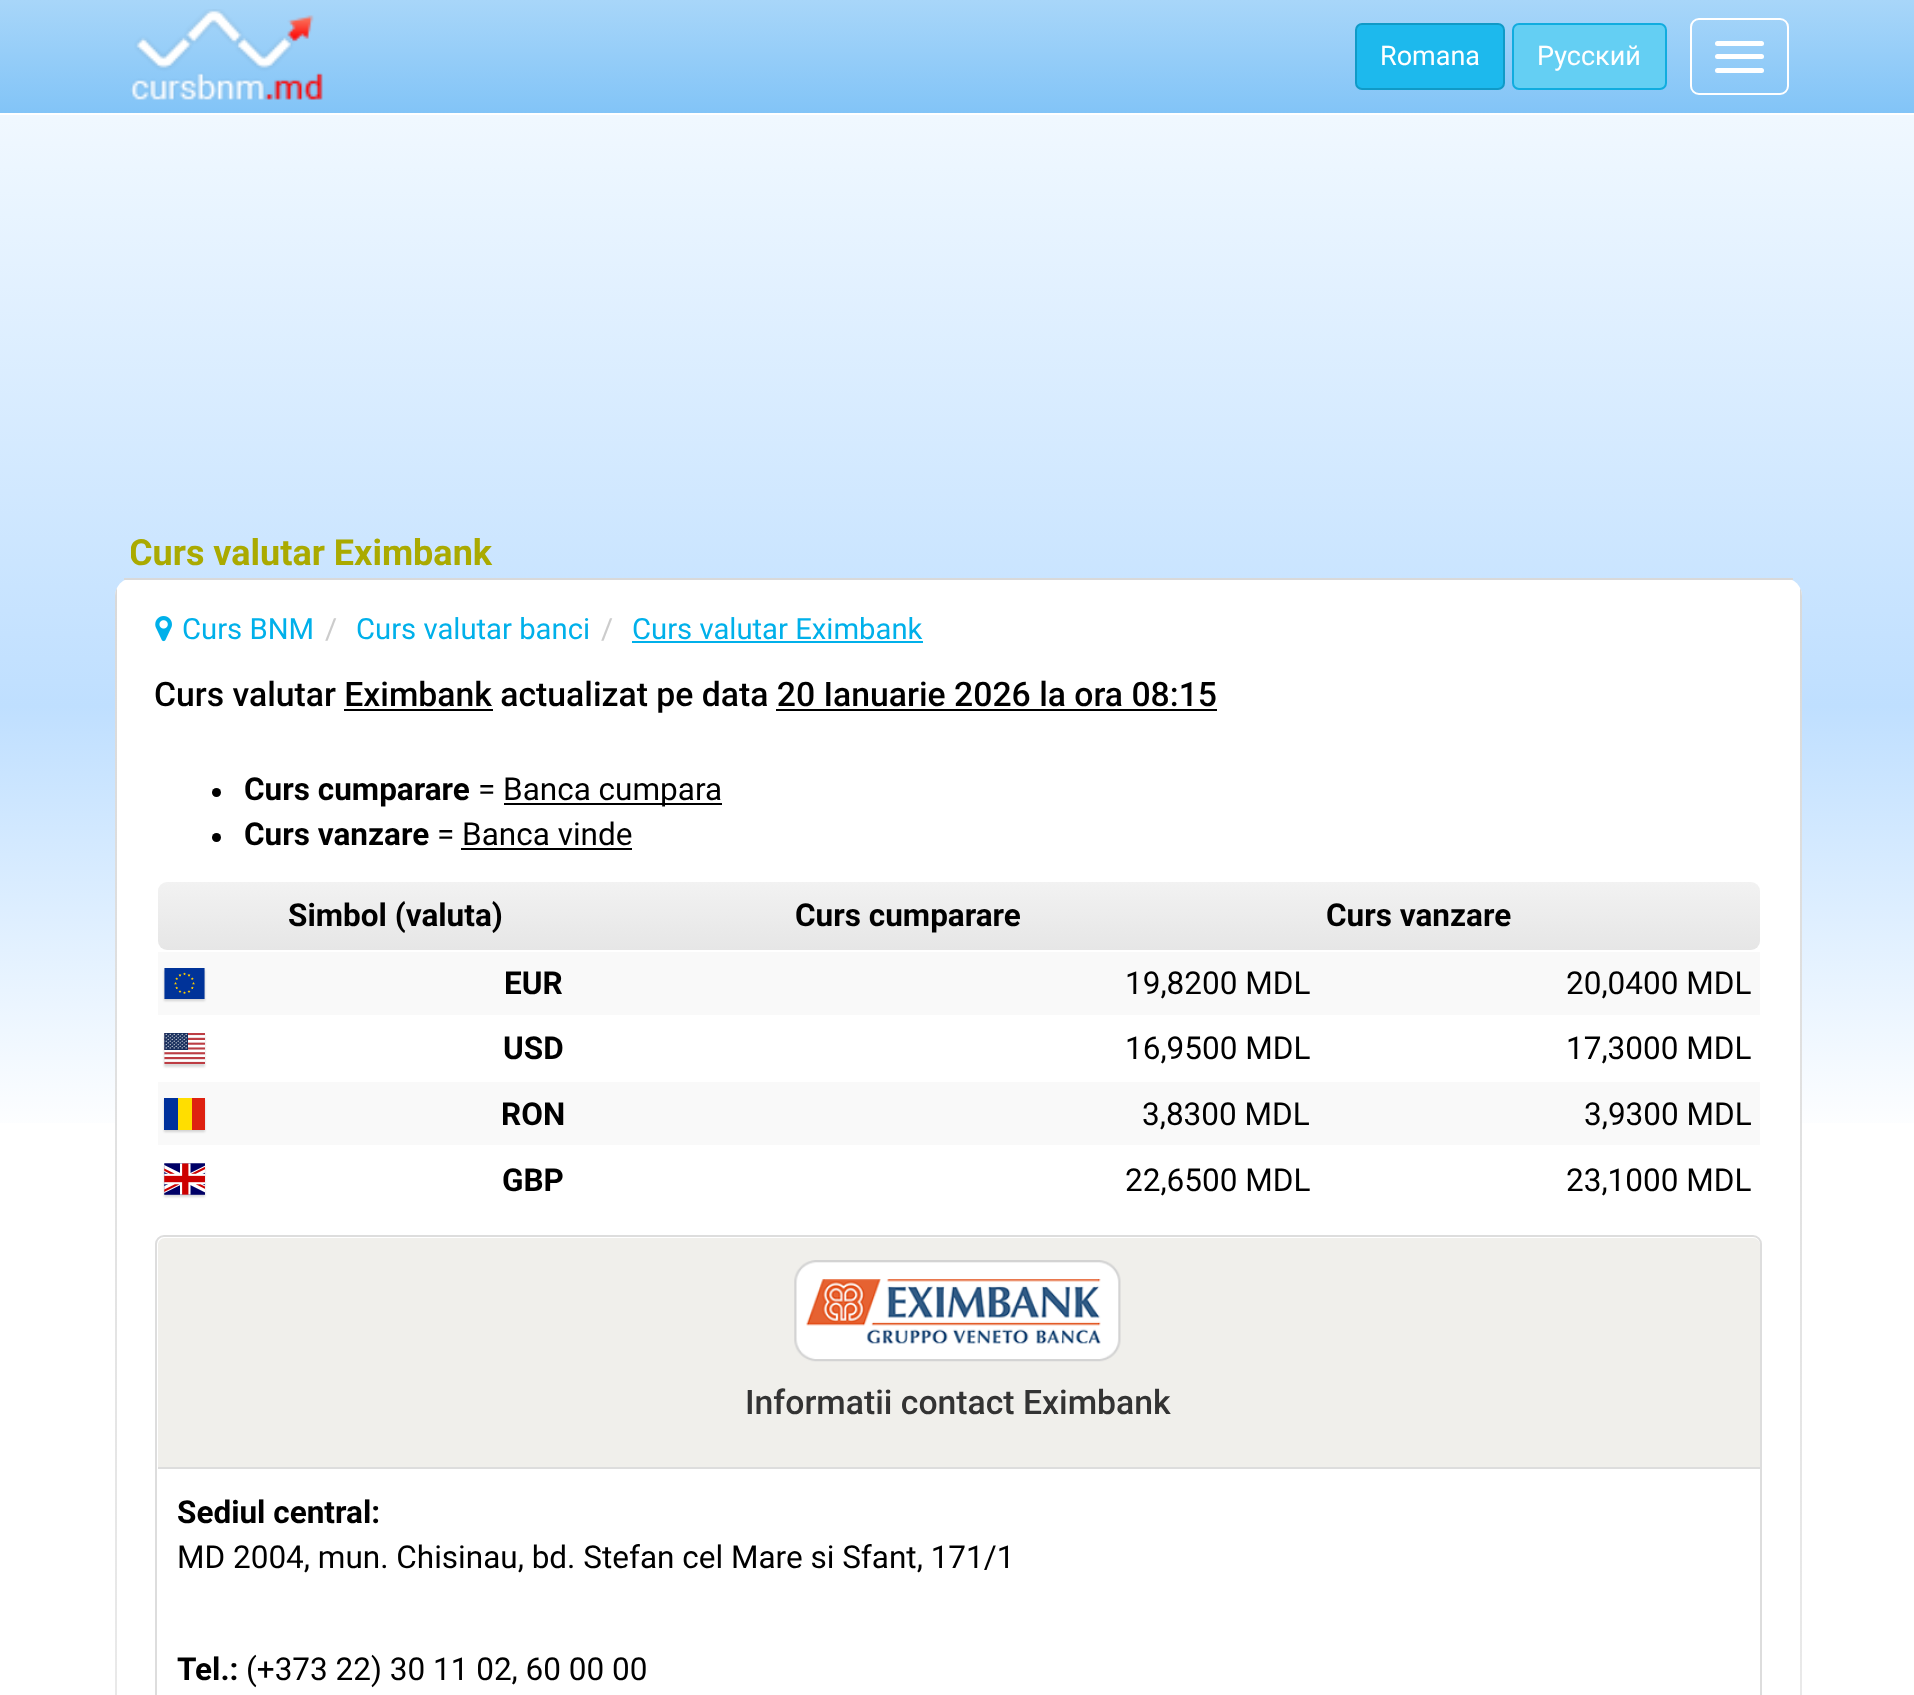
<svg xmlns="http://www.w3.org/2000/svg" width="1914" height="1695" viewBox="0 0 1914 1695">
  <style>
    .t1 { font: 27px Roboto; fill: #fff; }
    .t2 { font: bold 36px Roboto; fill: #aa0; }
    .t3 { font: 29.25px Roboto; fill: #00b0ea; }
    .t4 { font: 29.25px Roboto; fill: #ccc; }
    .t5 { font: 500 33.75px Roboto; fill: #000; }
    .t6 { font: bold 31.5px Roboto; fill: #000; }
    .t7 { font: 31.5px Roboto; fill: #000; }
    .t8 { font: 500 33.75px Roboto; fill: #333; }
  </style>
  <defs>
    <linearGradient id="g1" gradientUnits="userSpaceOnUse" x1="957" y1="0" x2="957" y2="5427"><stop offset="0" stop-color="#fafdff"/><stop offset="0.13" stop-color="#bfdfff"/><stop offset="0.21" stop-color="#fff"/><stop offset="1" stop-color="#fff"/></linearGradient>
    <linearGradient id="g2" gradientUnits="userSpaceOnUse" x1="957" y1="0" x2="957" y2="113"><stop offset="0" stop-color="#a8d6f9"/><stop offset="1" stop-color="#82c4f7"/></linearGradient>
    <clipPath id="clip1"><rect x="131" y="536" width="1671" height="36"/></clipPath>
    <clipPath id="clip2"><path d="M133 578H1784C1794 578 1802 586 1802 596V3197H115V596C115 586 123 578 133 578Z"/></clipPath>
    <linearGradient id="g3" gradientUnits="userSpaceOnUse" x1="1801" y1="581" x2="1801" y2="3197"><stop offset="0" stop-color="#d9d9d9"/><stop offset="1" stop-color="#d9d9d9" stop-opacity="0"/></linearGradient>
    <linearGradient id="g4" gradientUnits="userSpaceOnUse" x1="116" y1="581" x2="116" y2="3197"><stop offset="0" stop-color="#d9d9d9"/><stop offset="1" stop-color="#d9d9d9" stop-opacity="0"/></linearGradient>
    <linearGradient id="g5" gradientUnits="userSpaceOnUse" x1="959" y1="882" x2="959" y2="950"><stop offset="0" stop-color="#f2f2f2"/><stop offset="1" stop-color="#e6e6e6"/></linearGradient>
  </defs>
  <rect width="100%" height="100%" fill="#fff"/>
  <rect x="0" y="115" width="1914" height="1008" fill="url(#g1)"/>
  <rect x="0" y="0" width="1914" height="113" fill="url(#g2)"/>
  <image x="130" y="9" width="193" height="91" href="images/1.png"/>
  <rect x="1356" y="24" width="148" height="65" rx="6" fill="#1db9ed" stroke="#109ac7" stroke-width="2"/>
  <text x="1380" y="65" class="t1">Romana</text>
  <rect x="1513" y="24" width="153" height="65" rx="6" fill="#64cff3" stroke="#11acdf" stroke-width="2"/>
  <text x="1537" y="65" class="t1">Русский</text>
  <rect x="1691" y="19" width="97" height="75" rx="8" fill="none" stroke="#fff" stroke-width="2"/>
  <rect x="1715" y="41" width="49" height="5" rx="2.5" fill="#fff"/>
  <rect x="1715" y="54" width="49" height="5" rx="2.5" fill="#fff"/>
  <rect x="1715" y="68" width="49" height="5" rx="2.5" fill="#fff"/>
  <g clip-path="url(#clip1)">
    <text x="129" y="565" class="t2">Curs valutar Eximbank</text>
  </g>
  <path d="M133 578H1784C1794 578 1802 586 1802 596V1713H115V596C115 586 123 578 133 578Z" fill="#fff"/>
  <g clip-path="url(#clip2)">
    <rect x="1800" y="581" width="2" height="1114" fill="url(#g3)"/>
    <rect x="115" y="581" width="2" height="1114" fill="url(#g4)"/>
  </g>
  <rect x="124" y="578" width="1669" height="2" fill="#d9d9d9"/>
  <image x="155" y="616" width="17" height="26" href="images/2.png"/>
  <text x="182" y="639" class="t3">Curs BNM</text>
  <text x="325" y="639" class="t4">/</text>
  <text x="356" y="639" class="t3">Curs valutar banci</text>
  <text x="601" y="639" class="t4">/</text>
  <text x="632" y="639" class="t3">Curs valutar Eximbank</text>
  <rect x="632" y="641" width="291" height="2" fill="#00b0ea"/>
  <text x="154" y="706" class="t5">Curs valutar Eximbank actualizat pe data 20 Ianuarie 2026 la ora 08:15</text>
  <rect x="344" y="709" width="149" height="2" fill="#000"/>
  <rect x="776" y="709" width="441" height="2" fill="#000"/>
  <circle cx="216.5" cy="792.5" r="4.5" fill="#000"/>
  <text x="244" y="800" class="t6">Curs cumparare</text>
  <text x="478" y="800" class="t7">=</text>
  <rect x="504" y="803" width="218" height="2" fill="#000"/>
  <text x="503" y="800" class="t7">Banca cumpara</text>
  <circle cx="216.5" cy="837.5" r="4.5" fill="#000"/>
  <text x="244" y="845" class="t6">Curs vanzare</text>
  <text x="437" y="845" class="t7">= Banca vinde</text>
  <rect x="461" y="848" width="171" height="2" fill="#000"/>
  <rect x="158" y="882" width="1602" height="68" rx="9" fill="url(#g5)"/>
  <text x="288" y="926" class="t6">Simbol (valuta)</text>
  <text x="795" y="926" class="t6">Curs cumparare</text>
  <text x="1326" y="926" class="t6">Curs vanzare</text>
  <rect x="158" y="952" width="1602" height="63" fill="#f9f9f9"/>
  <rect x="164" y="970" width="41" height="31" fill="#00000026" filter="blur(1px)"/>
  <image x="164" y="968" width="41" height="31" href="images/3.png"/>
  <text x="504" y="994" class="t6">EUR</text>
  <text x="1125" y="994" class="t7">19,8200 MDL</text>
  <text x="1566" y="994" class="t7">20,0400 MDL</text>
  <rect x="164" y="1035" width="41" height="32" fill="#00000026" filter="blur(1px)"/>
  <image x="164" y="1033" width="41" height="31" href="images/4.png"/>
  <text x="503" y="1059" class="t6">USD</text>
  <text x="1125" y="1059" class="t7">16,9500 MDL</text>
  <text x="1566" y="1059" class="t7">17,3000 MDL</text>
  <rect x="158" y="1082" width="1602" height="63" fill="#f9f9f9"/>
  <rect x="164" y="1100" width="41" height="32" fill="#00000026" filter="blur(1px)"/>
  <rect x="164" y="1098" width="14" height="32" fill="#00319c"/>
  <rect x="178" y="1098" width="14" height="32" fill="#ffde00"/>
  <rect x="192" y="1098" width="13" height="32" fill="#de2110"/>
  <text x="501" y="1125" class="t6">RON</text>
  <text x="1142" y="1125" class="t7">3,8300 MDL</text>
  <text x="1584" y="1125" class="t7">3,9300 MDL</text>
  <rect x="164" y="1166" width="41" height="31" fill="#00000026" filter="blur(1px)"/>
  <image x="164" y="1163" width="41" height="32" href="images/5.png"/>
  <text x="502" y="1191" class="t6">GBP</text>
  <text x="1125" y="1191" class="t7">22,6500 MDL</text>
  <text x="1566" y="1191" class="t7">23,1000 MDL</text>
  <rect x="156" y="1236" width="1605" height="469" rx="8" fill="none" stroke="#ddd" stroke-width="2"/>
  <path d="M165 1238H1753C1757 1238 1760 1241 1760 1245V1469H158V1245C158 1241 161 1238 165 1238Z" fill="#f0efeb"/>
  <rect x="158" y="1467" width="1602" height="2" fill="#ddd"/>
  <image x="794" y="1260" width="327" height="102" href="images/6.png"/>
  <text x="745" y="1414" class="t8">Informatii contact Eximbank</text>
  <text x="177" y="1523" class="t6">Sediul central:</text>
  <text x="177" y="1568" class="t7">MD 2004, mun. Chisinau, bd. Stefan cel Mare si Sfant, 171/1</text>
  <text x="177" y="1680" class="t6">Tel.:</text>
  <text x="246" y="1680" class="t7">(+373 22) 30 11 02, 60 00 00</text>
</svg>
